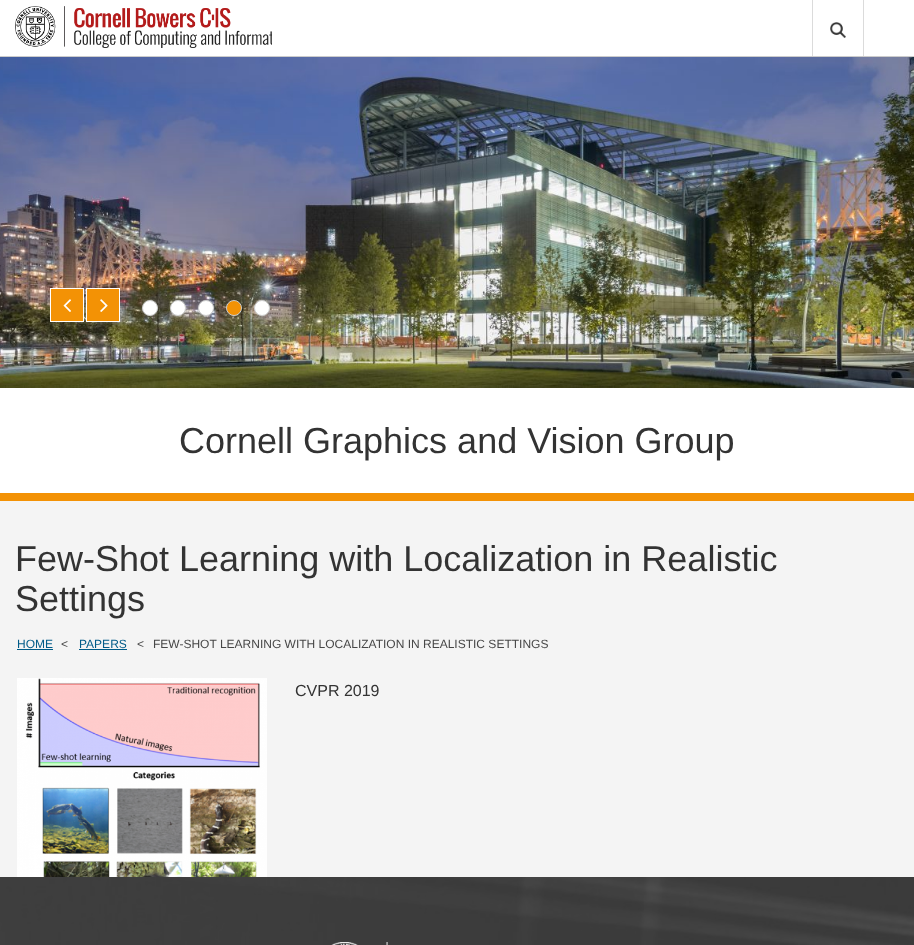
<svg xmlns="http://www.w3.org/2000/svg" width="914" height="945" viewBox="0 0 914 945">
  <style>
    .t1 { font: 36px Liberation Sans; fill: #333; }
    .t2 { font: 12px Liberation Sans; fill: #005b88; }
    .t3 { font: 12px Liberation Sans; fill: #474747; }
    .t4 { font: 16px Liberation Sans; fill: #333; }
  </style>
  <rect width="100%" height="100%" fill="#f4f4f4"/>
  <rect x="0" y="0" width="914" height="56" fill="#fff"/>
  <rect x="0" y="56" width="914" height="1" fill="#ccc"/>
  <image x="15" y="6" width="257" height="42" href="images/1.png"/>
  <rect x="863" y="0" width="1" height="56" fill="#dbdbdb"/>
  <rect x="812" y="0" width="1" height="56" fill="#dbdbdb"/>
  <image x="830" y="22" width="16" height="16" href="images/2.png"/>
  <image x="0" y="57" width="914" height="331" href="images/3.png"/>
  <rect x="50.5" y="288.5" width="33" height="33" fill="#f39205" stroke="#fff"/>
  <image x="63" y="299" width="8" height="13" href="images/4.png"/>
  <rect x="86.5" y="288.5" width="33" height="33" fill="#f39205" stroke="#fff"/>
  <image x="100" y="299" width="8" height="13" href="images/5.png"/>
  <rect x="142" y="300" width="16" height="16" rx="8" fill="#ffffff4d" filter="blur(1px)"/>
  <circle cx="150" cy="308" r="7.5" fill="#fff" stroke="#ccc"/>
  <rect x="170" y="300" width="16" height="16" rx="8" fill="#ffffff4d" filter="blur(1px)"/>
  <circle cx="178" cy="308" r="7.5" fill="#fff" stroke="#ccc"/>
  <rect x="198" y="300" width="16" height="16" rx="8" fill="#ffffff4d" filter="blur(1px)"/>
  <circle cx="206" cy="308" r="7.5" fill="#fff" stroke="#ccc"/>
  <rect x="226" y="300" width="16" height="16" rx="8" fill="#00000033" filter="blur(1px)"/>
  <circle cx="234" cy="308" r="7.5" fill="#f39205" stroke="#ccc"/>
  <rect x="254" y="300" width="16" height="16" rx="8" fill="#ffffff4d" filter="blur(1px)"/>
  <circle cx="262" cy="308" r="7.5" fill="#fff" stroke="#ccc"/>
  <rect x="0" y="388" width="914" height="105" fill="#fff"/>
  <rect x="0" y="493" width="914" height="8" fill="#f39205"/>
  <text x="179" y="453" class="t1">Cornell Graphics and Vision Group</text>
  <text x="15" y="571" class="t1">Few-Shot Learning with Localization in Realistic</text>
  <text x="15" y="611" class="t1">Settings</text>
  <text x="17" y="648" class="t2">HOME</text>
  <rect x="17" y="649" width="36" height="1" fill="#005b88"/>
  <text x="61" y="648" class="t3">&lt;</text>
  <text x="79" y="648" class="t2">PAPERS</text>
  <rect x="79" y="649" width="48" height="1" fill="#005b88"/>
  <text x="137" y="648" class="t3">&lt;</text>
  <text x="153" y="648" class="t3">FEW-SHOT LEARNING WITH LOCALIZATION IN REALISTIC SETTINGS</text>
  <image x="17" y="678" width="250" height="199" href="images/6.png"/>
  <text x="295" y="696" class="t4">CVPR 2019</text>
  <image x="0" y="877" width="914" height="68" href="images/7.png"/>
  <image x="331" y="942" width="57" height="3" href="images/8.png"/>
</svg>
